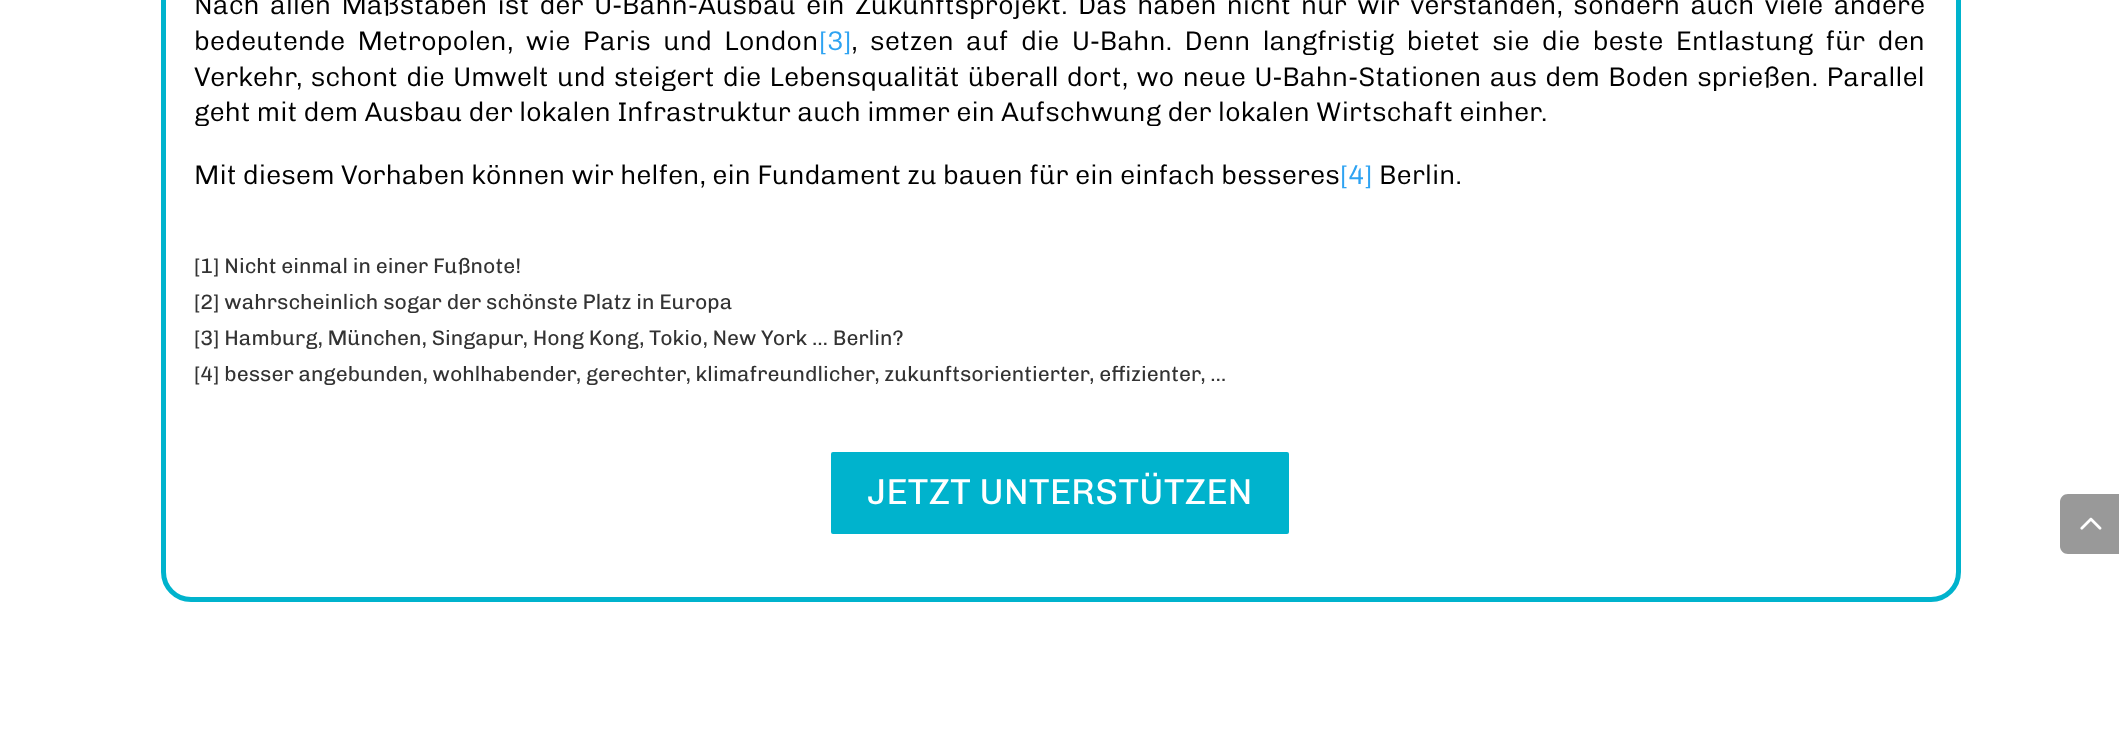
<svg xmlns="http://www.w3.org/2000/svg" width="2119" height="741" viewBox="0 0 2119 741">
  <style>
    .t1 { font: 300 27px Chivo; fill: #000; }
    .t2 { font: 300 27px Chivo; fill: #2ea3f2; }
    .t3 { font: 500 21px Chivo; fill: #333; }
    .t4 { font: 500 36px Chivo; fill: #fff; }
  </style>
  <rect width="100%" height="100%" fill="#fff"/>
  <rect x="163.5" y="-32.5" width="1795" height="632" rx="27.5" fill="none" stroke="#00b3cd" stroke-width="5"/>
  <text x="194" y="14" word-spacing="4" class="t1">Nach allen Maßstäben ist der U-Bahn-Ausbau ein Zukunftsprojekt. Das haben nicht nur wir verstanden, sondern auch viele andere</text>
  <text x="194" y="50" word-spacing="6.1" class="t1">bedeutende Metropolen, wie Paris und London</text>
  <text x="819" y="50" class="t2">[3]</text>
  <text x="851" y="50" word-spacing="6.1" class="t1">, setzen auf die U-Bahn. Denn langfristig bietet sie die beste Entlastung für den</text>
  <text x="194" y="86" word-spacing="2" class="t1">Verkehr, schont die Umwelt und steigert die Lebensqualität überall dort, wo neue U-Bahn-Stationen aus dem Boden sprießen. Parallel</text>
  <text x="194" y="121" class="t1">geht mit dem Ausbau der lokalen Infrastruktur auch immer ein Aufschwung der lokalen Wirtschaft einher.</text>
  <text x="194" y="184" class="t1">Mit diesem Vorhaben können wir helfen, ein Fundament zu bauen für ein einfach besseres</text>
  <text x="1340" y="184" class="t2">[4]</text>
  <text x="1379" y="184" class="t1">Berlin.</text>
  <text x="194" y="273" class="t3">[1] Nicht einmal in einer Fußnote!</text>
  <text x="194" y="309" class="t3">[2] wahrscheinlich sogar der schönste Platz in Europa</text>
  <text x="194" y="345" class="t3">[3] Hamburg, München, Singapur, Hong Kong, Tokio, New York … Berlin?</text>
  <text x="194" y="381" class="t3">[4] besser angebunden, wohlhabender, gerechter, klimafreundlicher, zukunftsorientierter, effizienter, …</text>
  <rect x="829.5" y="450.5" width="461" height="85" rx="3.5" fill="#00b3cd" stroke="#fff" stroke-width="3"/>
  <text x="867" y="504" class="t4">JETZT UNTERSTÜTZEN</text>
  <path d="M2068 494H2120V554H2068C2063.5 554 2060 550.5 2060 546V502C2060 497.5 2063.5 494 2068 494Z" fill="#999"/>
  <image x="2080" y="517" width="22" height="13" href="images/1.png"/>
</svg>
